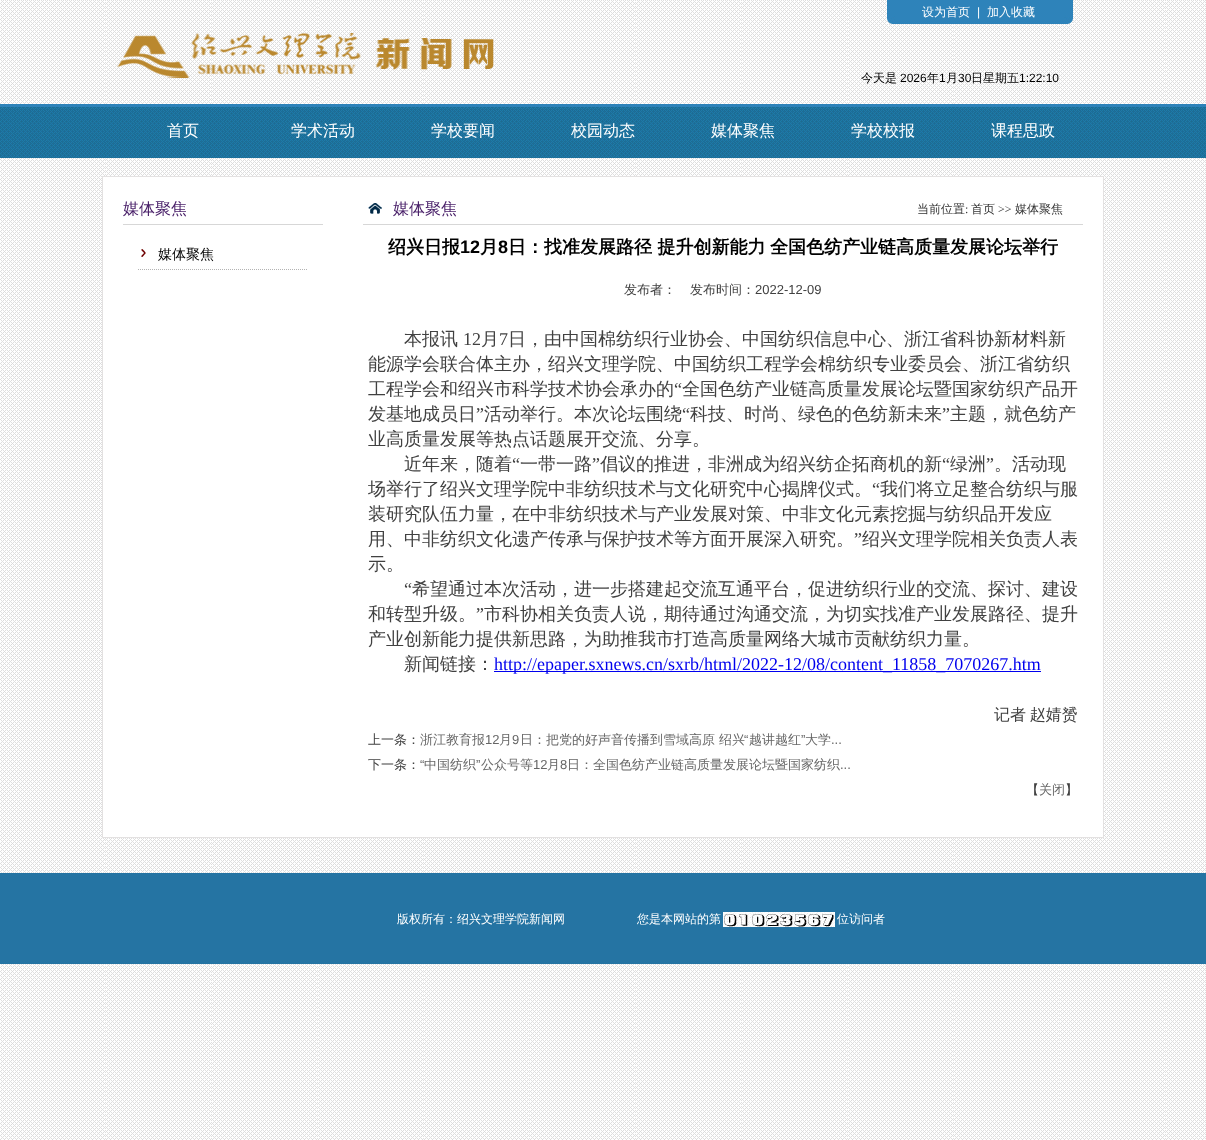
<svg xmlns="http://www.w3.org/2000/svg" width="1206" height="1140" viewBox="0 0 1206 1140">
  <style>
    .t1 { font: 500 12px WenQuanYi Zen Hei; fill: #fff; }
    .t2 { font: 12px Liberation Sans; fill: #fff; }
    .t3 { font: 500 12px WenQuanYi Zen Hei; fill: #000; }
    .t4 { font: 12px Liberation Sans; fill: #000; }
    .t5 { font: 500 16px WenQuanYi Zen Hei; fill: #fff; }
    .t6 { font: 500 16px WenQuanYi Zen Hei; fill: #471d67; }
    .t7 { font: 500 14px WenQuanYi Zen Hei; fill: #000; }
    .t8 { font: 500 12px WenQuanYi Zen Hei; fill: #333; }
    .t9 { font: 12px Liberation Serif; fill: #333; }
    .t10 { font: bold 18px WenQuanYi Zen Hei; fill: #000; }
    .t11 { font: bold 18px Liberation Sans; fill: #000; }
    .t12 { font: 500 13px WenQuanYi Zen Hei; fill: #414141; }
    .t13 { font: 13px Liberation Sans; fill: #414141; }
    .t14 { font: 500 18px WenQuanYi Zen Hei; fill: #414141; }
    .t15 { font: 18px Liberation Serif; fill: #414141; }
    .t16 { font: 18px Liberation Serif; fill: #00e; }
    .t17 { font: 500 16px WenQuanYi Zen Hei; fill: #414141; }
    .t18 { font: 500 13px WenQuanYi Zen Hei; fill: #666; }
    .t19 { font: 13px Liberation Sans; fill: #666; }
  </style>
  <rect width="100%" height="100%" fill="#fff"/>
  <image x="0" y="0" width="1206" height="1140" href="images/1.png"/>
  <image x="887" y="0" width="186" height="24" href="images/2.png"/>
  <text x="922" y="16" class="t1">设为首页</text>
  <text x="977" y="16" class="t2">|</text>
  <text x="987" y="16" class="t1">加入收藏</text>
  <image x="117" y="33" width="377" height="45" href="images/3.png"/>
  <text x="861" y="82" class="t3">今天是</text>
  <text x="900" y="82" class="t4">2026</text>
  <text x="927" y="82" class="t3">年</text>
  <text x="939" y="82" class="t4">1</text>
  <text x="946" y="82" class="t3">月</text>
  <text x="958" y="82" class="t4">30</text>
  <text x="971" y="82" class="t3">日星期五</text>
  <text x="1019" y="82" class="t4">1:22:10</text>
  <image x="0" y="104" width="1206" height="54" href="images/4.png"/>
  <text x="167" y="136" class="t5">首页</text>
  <text x="291" y="136" class="t5">学术活动</text>
  <text x="431" y="136" class="t5">学校要闻</text>
  <text x="571" y="136" class="t5">校园动态</text>
  <text x="711" y="136" class="t5">媒体聚焦</text>
  <text x="851" y="136" class="t5">学校校报</text>
  <text x="991" y="136" class="t5">课程思政</text>
  <rect x="102.5" y="176.5" width="1001" height="661" fill="#fff" stroke="#e3e1e1"/>
  <rect x="123" y="224" width="200" height="1" fill="#d7d7d7"/>
  <text x="123" y="214" class="t6">媒体聚焦</text>
  <image x="141" y="249" width="5" height="8" href="images/5.png"/>
  <path d="M138 269.5H308" fill="none" stroke="#b3b3b3" stroke-dasharray="1 1"/>
  <text x="158" y="259" class="t7">媒体聚焦</text>
  <image x="368" y="203" width="14" height="11" href="images/6.png"/>
  <rect x="363" y="224" width="720" height="1" fill="#d7d7d7"/>
  <text x="393" y="214" class="t6">媒体聚焦</text>
  <text x="917" y="213" class="t8">当前位置</text>
  <text x="965" y="213" class="t9">:</text>
  <text x="971" y="213" class="t8">首页</text>
  <text x="998" y="213" class="t9">&gt;&gt;</text>
  <text x="1015" y="213" class="t8">媒体聚焦</text>
  <text x="388" y="253" class="t10">绍兴日报</text>
  <text x="460" y="253" class="t11">12</text>
  <text x="480" y="253" class="t10">月</text>
  <text x="498" y="253" class="t11">8</text>
  <text x="508" y="253" class="t10">日：找准发展路径 提升创新能力</text>
  <text x="770" y="253" class="t10">全国色纺产业链高质量发展论坛举行</text>
  <text x="624" y="294" class="t12">发布者：</text>
  <text x="690" y="294" class="t12">发布时间：</text>
  <text x="755" y="294" class="t13">2022-12-09</text>
  <text x="404" y="345" class="t14">本报讯</text>
  <text x="463" y="345" class="t15">12</text>
  <text x="481" y="345" class="t14">月</text>
  <text x="499" y="345" class="t15">7</text>
  <text x="508" y="345" class="t14">日，由中国棉纺织行业协会、中国纺织信息中心、浙江省科协新材料新</text>
  <text x="368" y="370" class="t14">能源学会联合体主办，绍兴文理学院、中国纺织工程学会棉纺织专业委员会、浙江省纺织</text>
  <text x="368" y="395" class="t14">工程学会和绍兴市科学技术协会承办的</text>
  <text x="674" y="395" class="t15">“</text>
  <text x="682" y="395" class="t14">全国色纺产业链高质量发展论坛暨国家纺织产品开</text>
  <text x="368" y="420" class="t14">发基地成员日</text>
  <text x="476" y="420" class="t15">”</text>
  <text x="484" y="420" class="t14">活动举行。本次论坛围绕</text>
  <text x="682" y="420" class="t15">“</text>
  <text x="690" y="420" class="t14">科技、时尚、绿色的色纺新未来</text>
  <text x="942" y="420" class="t15">”</text>
  <text x="950" y="420" class="t14">主题，就色纺产</text>
  <text x="368" y="445" class="t14">业高质量发展等热点话题展开交流、分享。</text>
  <text x="404" y="470" class="t14">近年来，随着</text>
  <text x="512" y="470" class="t15">“</text>
  <text x="520" y="470" class="t14">一带一路</text>
  <text x="592" y="470" class="t15">”</text>
  <text x="600" y="470" class="t14">倡议的推进，非洲成为绍兴纺企拓商机的新</text>
  <text x="942" y="470" class="t15">“</text>
  <text x="950" y="470" class="t14">绿洲</text>
  <text x="986" y="470" class="t15">”</text>
  <text x="994" y="470" class="t14">。活动现</text>
  <text x="368" y="495" class="t14">场举行了绍兴文理学院中非纺织技术与文化研究中心揭牌仪式。</text>
  <text x="872" y="495" class="t15">“</text>
  <text x="880" y="495" class="t14">我们将立足整合纺织与服</text>
  <text x="368" y="520" class="t14">装研究队伍力量，在中非纺织技术与产业发展对策、中非文化元素挖掘与纺织品开发应</text>
  <text x="368" y="545" class="t14">用、中非纺织文化遗产传承与保护技术等方面开展深入研究。</text>
  <text x="854" y="545" class="t15">”</text>
  <text x="862" y="545" class="t14">绍兴文理学院相关负责人表</text>
  <text x="368" y="570" class="t14">示。</text>
  <text x="404" y="595" class="t15">“</text>
  <text x="412" y="595" class="t14">希望通过本次活动，进一步搭建起交流互通平台，促进纺织行业的交流、探讨、建设</text>
  <text x="368" y="620" class="t14">和转型升级。</text>
  <text x="476" y="620" class="t15">”</text>
  <text x="484" y="620" class="t14">市科协相关负责人说，期待通过沟通交流，为切实找准产业发展路径、提升</text>
  <text x="368" y="645" class="t14">产业创新能力提供新思路，为助推我市打造高质量网络大城市贡献纺织力量。</text>
  <text x="404" y="670" class="t14">新闻链接：</text>
  <rect x="494" y="671" width="547" height="1" fill="#00e"/>
  <text x="494" y="670" class="t16">http://epaper.sxnews.cn/sxrb/html/2022-12/08/content_11858_7070267.htm</text>
  <text x="994" y="720" word-spacing="-1" class="t17">记者 赵婧赟</text>
  <text x="368" y="744" class="t12">上一条：</text>
  <text x="420" y="744" class="t18">浙江教育报</text>
  <text x="485" y="744" class="t19">12</text>
  <text x="499" y="744" class="t18">月</text>
  <text x="512" y="744" class="t19">9</text>
  <text x="520" y="744" class="t18">日：把党的好声音传播到雪域高原 绍兴</text>
  <text x="744" y="744" class="t19">“</text>
  <text x="749" y="744" class="t18">越讲越红</text>
  <text x="801" y="744" class="t19">”</text>
  <text x="805" y="744" class="t18">大学</text>
  <text x="831" y="744" class="t19">...</text>
  <text x="368" y="769" class="t12">下一条：</text>
  <text x="420" y="769" class="t19">“</text>
  <text x="424" y="769" class="t18">中国纺织</text>
  <text x="476" y="769" class="t19">”</text>
  <text x="481" y="769" class="t18">公众号等</text>
  <text x="533" y="769" class="t19">12</text>
  <text x="547" y="769" class="t18">月</text>
  <text x="560" y="769" class="t19">8</text>
  <text x="567" y="769" class="t18">日：全国色纺产业链高质量发展论坛暨国家纺织</text>
  <text x="840" y="769" class="t19">...</text>
  <text x="1026" y="794" class="t12">【</text>
  <text x="1039" y="794" class="t18">关闭</text>
  <text x="1065" y="794" class="t12">】</text>
  <rect x="0" y="873" width="1206" height="91" fill="#2574a3"/>
  <text x="397" y="923" class="t1">版权所有：绍兴文理学院新闻网</text>
  <text x="637" y="923" class="t1">您是本网站的第</text>
  <image x="723" y="912" width="112" height="15" href="images/7.png"/>
  <text x="837" y="923" class="t1">位访问者</text>
</svg>
